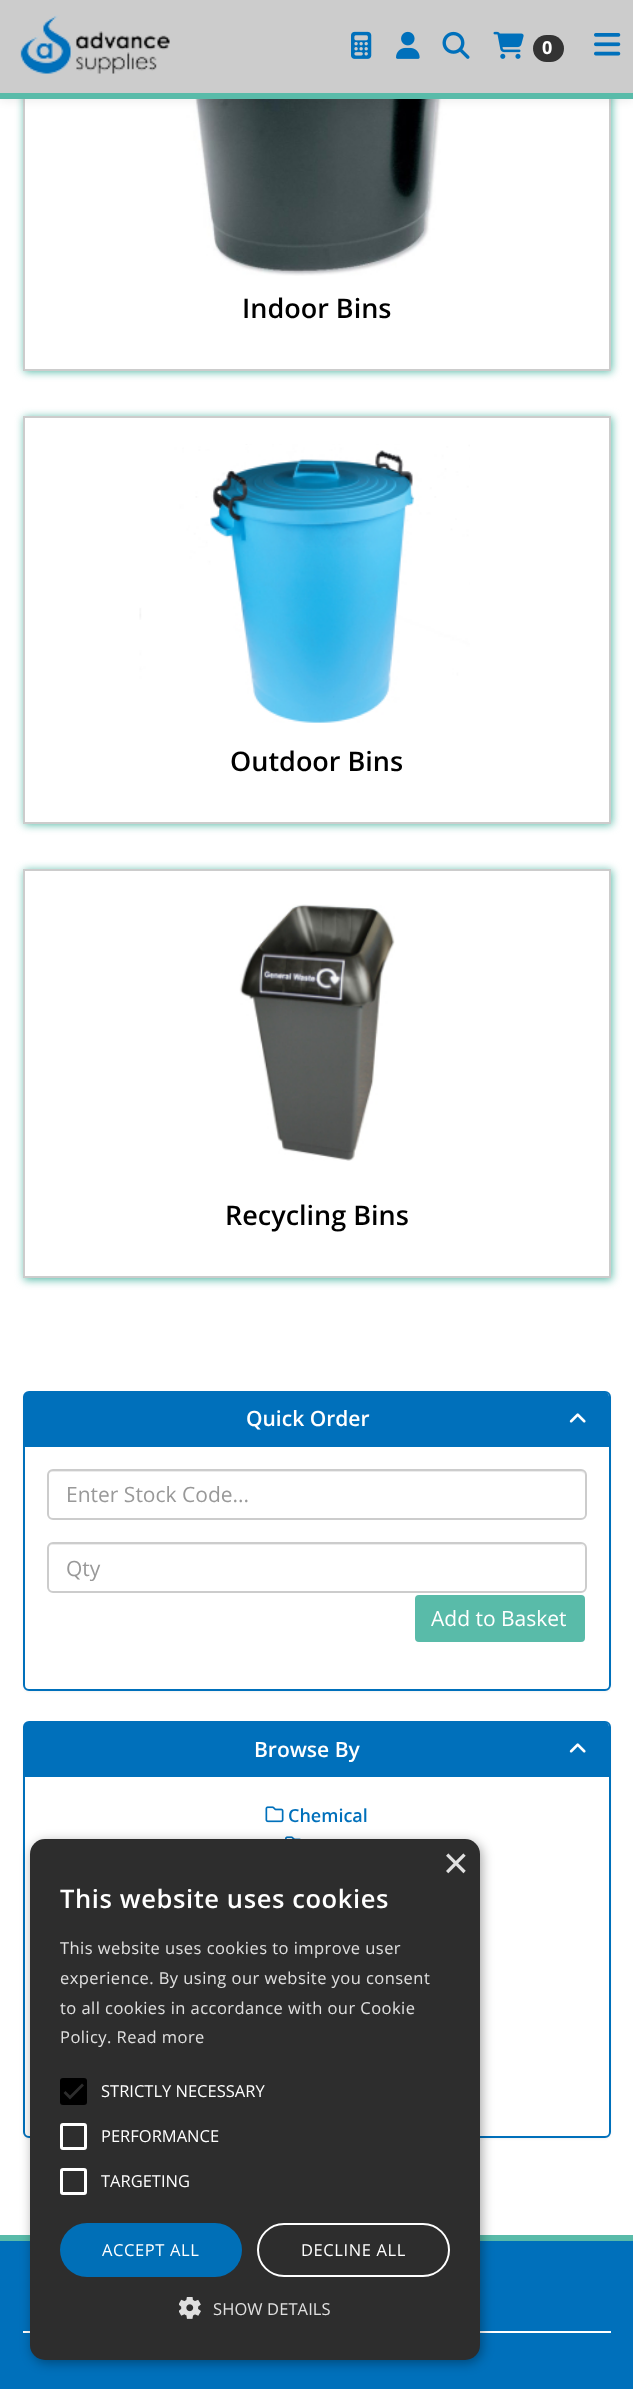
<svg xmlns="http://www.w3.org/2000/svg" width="633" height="2389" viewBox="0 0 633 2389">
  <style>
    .t1 { font: bold 18px Open Sans; fill: #fff; }
    .t2 { font: 600 27px Open Sans; fill: #000; }
    .t3 { font: 600 21px Open Sans; fill: #fff; }
    .t4 { font: 21px Open Sans; fill: #999; }
    .t5 { font: 21px Open Sans; fill: #fff; }
    .t6 { font: 600 18px Open Sans; fill: #0070bb; }
    .t7 { font: 44px Liberation Sans; fill: #e0e0e0; }
    .t8 { font: 600 25.5px Open Sans; letter-spacing: 0.6px; fill: #fff; }
    .t9 { font: 16.5px Open Sans; letter-spacing: 0.45px; fill: #e0e0e0; }
    .t10 { font: 16.5px Open Sans; fill: #fff; }
    .t11 { font: 16.5px Open Sans; letter-spacing: 0.6px; fill: #fff; }
    .t12 { font: 16.5px Open Sans; letter-spacing: 0.1px; fill: #e0e0e0; }
  </style>
  <defs>
    <clipPath id="clip1"><path d="M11 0H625V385H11ZM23-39H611V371H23Z" clip-rule="evenodd"/></clipPath>
    <clipPath id="clip2"><path d="M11 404H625V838H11ZM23 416H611V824H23Z" clip-rule="evenodd"/></clipPath>
    <clipPath id="clip3"><path d="M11 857H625V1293H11ZM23 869H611V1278H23Z" clip-rule="evenodd"/></clipPath>
  </defs>
  <rect width="100%" height="100%" fill="#fff"/>
  <g clip-path="url(#clip1)">
    <rect x="24" y="-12" width="588" height="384" fill="#59bba9" filter="blur(4px)"/>
  </g>
  <rect x="24" y="-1" width="586" height="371" fill="none" stroke="#ccc" stroke-width="2"/>
  <image x="173" y="99" width="287" height="177" href="images/7.png"/>
  <rect x="0" y="2" width="633" height="99" fill="#00000012" filter="blur(4px)"/>
  <rect x="0" y="0" width="633" height="93" fill="#ccc"/>
  <rect x="0" y="93" width="633" height="6" fill="#59bba9"/>
  <image x="20" y="15" width="150" height="59" href="images/1.png"/>
  <image x="351" y="31" width="21" height="28" href="images/2.png"/>
  <image x="396" y="31" width="24" height="28" href="images/3.png"/>
  <image x="442" y="31" width="28" height="28" href="images/4.png"/>
  <image x="493" y="31" width="31" height="28" href="images/5.png"/>
  <rect x="533" y="35" width="31" height="27" rx="13.5" fill="#333"/>
  <text x="542" y="54" class="t1">0</text>
  <image x="594" y="33" width="27" height="23" href="images/6.png"/>
  <text x="242" y="318" class="t2">Indoor Bins</text>
  <g clip-path="url(#clip2)">
    <rect x="24" y="417" width="588" height="408" fill="#59bba9" filter="blur(4px)"/>
  </g>
  <rect x="24" y="417" width="586" height="406" fill="none" stroke="#ccc" stroke-width="2"/>
  <image x="139" y="444" width="331" height="279" href="images/8.png"/>
  <text x="230" y="771" class="t2">Outdoor Bins</text>
  <g clip-path="url(#clip3)">
    <rect x="24" y="870" width="588" height="410" fill="#59bba9" filter="blur(4px)"/>
  </g>
  <rect x="24" y="870" width="586" height="407" fill="none" stroke="#ccc" stroke-width="2"/>
  <image x="239" y="904" width="156" height="257" href="images/9.png"/>
  <text x="225" y="1225" class="t2">Recycling Bins</text>
  <rect x="23" y="1392" width="588" height="300" rx="6" fill="#0000000d" filter="blur(1px)"/>
  <rect x="24" y="1392" width="586" height="298" rx="5" fill="#fff" stroke="#0070bb" stroke-width="2"/>
  <path d="M29 1392H604C607 1392 609 1394 609 1397V1446H24V1397C24 1394 26 1392 29 1392Z" fill="#0070bb"/>
  <rect x="24" y="1446" width="585" height="1" fill="#0070bb"/>
  <text x="246" y="1426" class="t3">Quick Order</text>
  <image x="569" y="1413" width="17" height="10" href="images/10.png"/>
  <path d="M52 1472H580C583 1472 585 1474 585 1476C585 1473 583 1470 580 1470H53C50 1470 48 1473 48 1476C48 1474 50 1472 52 1472Z" fill="#ececec"/>
  <rect x="48" y="1470" width="538" height="49" rx="5" fill="none" stroke="#ccc" stroke-width="2"/>
  <text x="66" y="1502" class="t4">Enter Stock Code...</text>
  <path d="M52 1545H580C583 1545 585 1547 585 1550C585 1547 583 1544 580 1544H53C50 1544 48 1547 48 1550C48 1547 50 1545 52 1545Z" fill="#ececec"/>
  <rect x="48" y="1543" width="538" height="49" rx="5" fill="none" stroke="#ccc" stroke-width="2"/>
  <text x="66" y="1576" class="t4">Qty</text>
  <rect x="414" y="1594" width="172" height="49" rx="5" fill="#59bba9" stroke="#fff" stroke-width="2"/>
  <text x="431" y="1626" class="t5">Add to Basket</text>
  <rect x="23" y="1722" width="588" height="417" rx="6" fill="#0000000d" filter="blur(1px)"/>
  <rect x="24" y="1722" width="586" height="415" rx="5" fill="#fff" stroke="#0070bb" stroke-width="2"/>
  <path d="M29 1722H604C607 1722 609 1724 609 1727V1776H24V1727C24 1724 26 1722 29 1722Z" fill="#0070bb"/>
  <rect x="24" y="1776" width="585" height="1" fill="#0070bb"/>
  <text x="254" y="1757" class="t3">Browse By</text>
  <image x="569" y="1743" width="17" height="10" href="images/10.png"/>
  <image x="265" y="1806" width="19" height="17" href="images/11.png"/>
  <text x="288" y="1822" class="t6">Chemical</text>
  <image x="285" y="1836" width="16" height="3" href="images/12.png"/>
  <rect x="0" y="2241" width="633" height="148" fill="#0070bb"/>
  <rect x="0" y="2235" width="633" height="6" fill="#59bba9"/>
  <rect x="23" y="2331" width="588" height="2" fill="#fff"/>
  <rect x="32" y="1842" width="450" height="521" rx="15" fill="#00000059" filter="blur(6px)"/>
  <rect x="30" y="1839" width="450" height="521" rx="15" fill="#2d2d2d"/>
  <text x="443" y="1878" class="t7">×</text>
  <text x="60" y="1908" class="t8">This website uses cookies</text>
  <text x="60" y="1954" class="t9">This website uses cookies to improve user</text>
  <text x="60" y="1984" class="t9">experience. By using our website you consent</text>
  <text x="60" y="2014" class="t9">to all cookies in accordance with our Cookie</text>
  <text x="60" y="2043" class="t9">Policy. Read more</text>
  <rect x="60" y="2078" width="27" height="27" rx="3" fill="#000"/>
  <path d="M64.5 2092L70 2097.5L83 2084.5" fill="none" stroke="#2d2d2d" stroke-width="2.7"/>
  <text x="101" y="2097" class="t10">STRICTLY NECESSARY</text>
  <rect x="61.5" y="2124.5" width="24" height="24" rx="1.5" fill="none" stroke="#fff" stroke-width="3"/>
  <text x="101" y="2142" class="t10">PERFORMANCE</text>
  <rect x="61.5" y="2169.5" width="24" height="24" rx="1.5" fill="none" stroke="#fff" stroke-width="3"/>
  <text x="101" y="2187" class="t10">TARGETING</text>
  <rect x="60" y="2223" width="182" height="54" rx="27" fill="#006fb7"/>
  <text x="102" y="2256" class="t11">ACCEPT ALL</text>
  <rect x="258" y="2224" width="191" height="52" rx="26" fill="none" stroke="#fff" stroke-width="2"/>
  <text x="301" y="2256" class="t11">DECLINE ALL</text>
  <image x="179" y="2297" width="22" height="22" href="images/13.png"/>
  <text x="213" y="2315" class="t12">SHOW DETAILS</text>
</svg>
